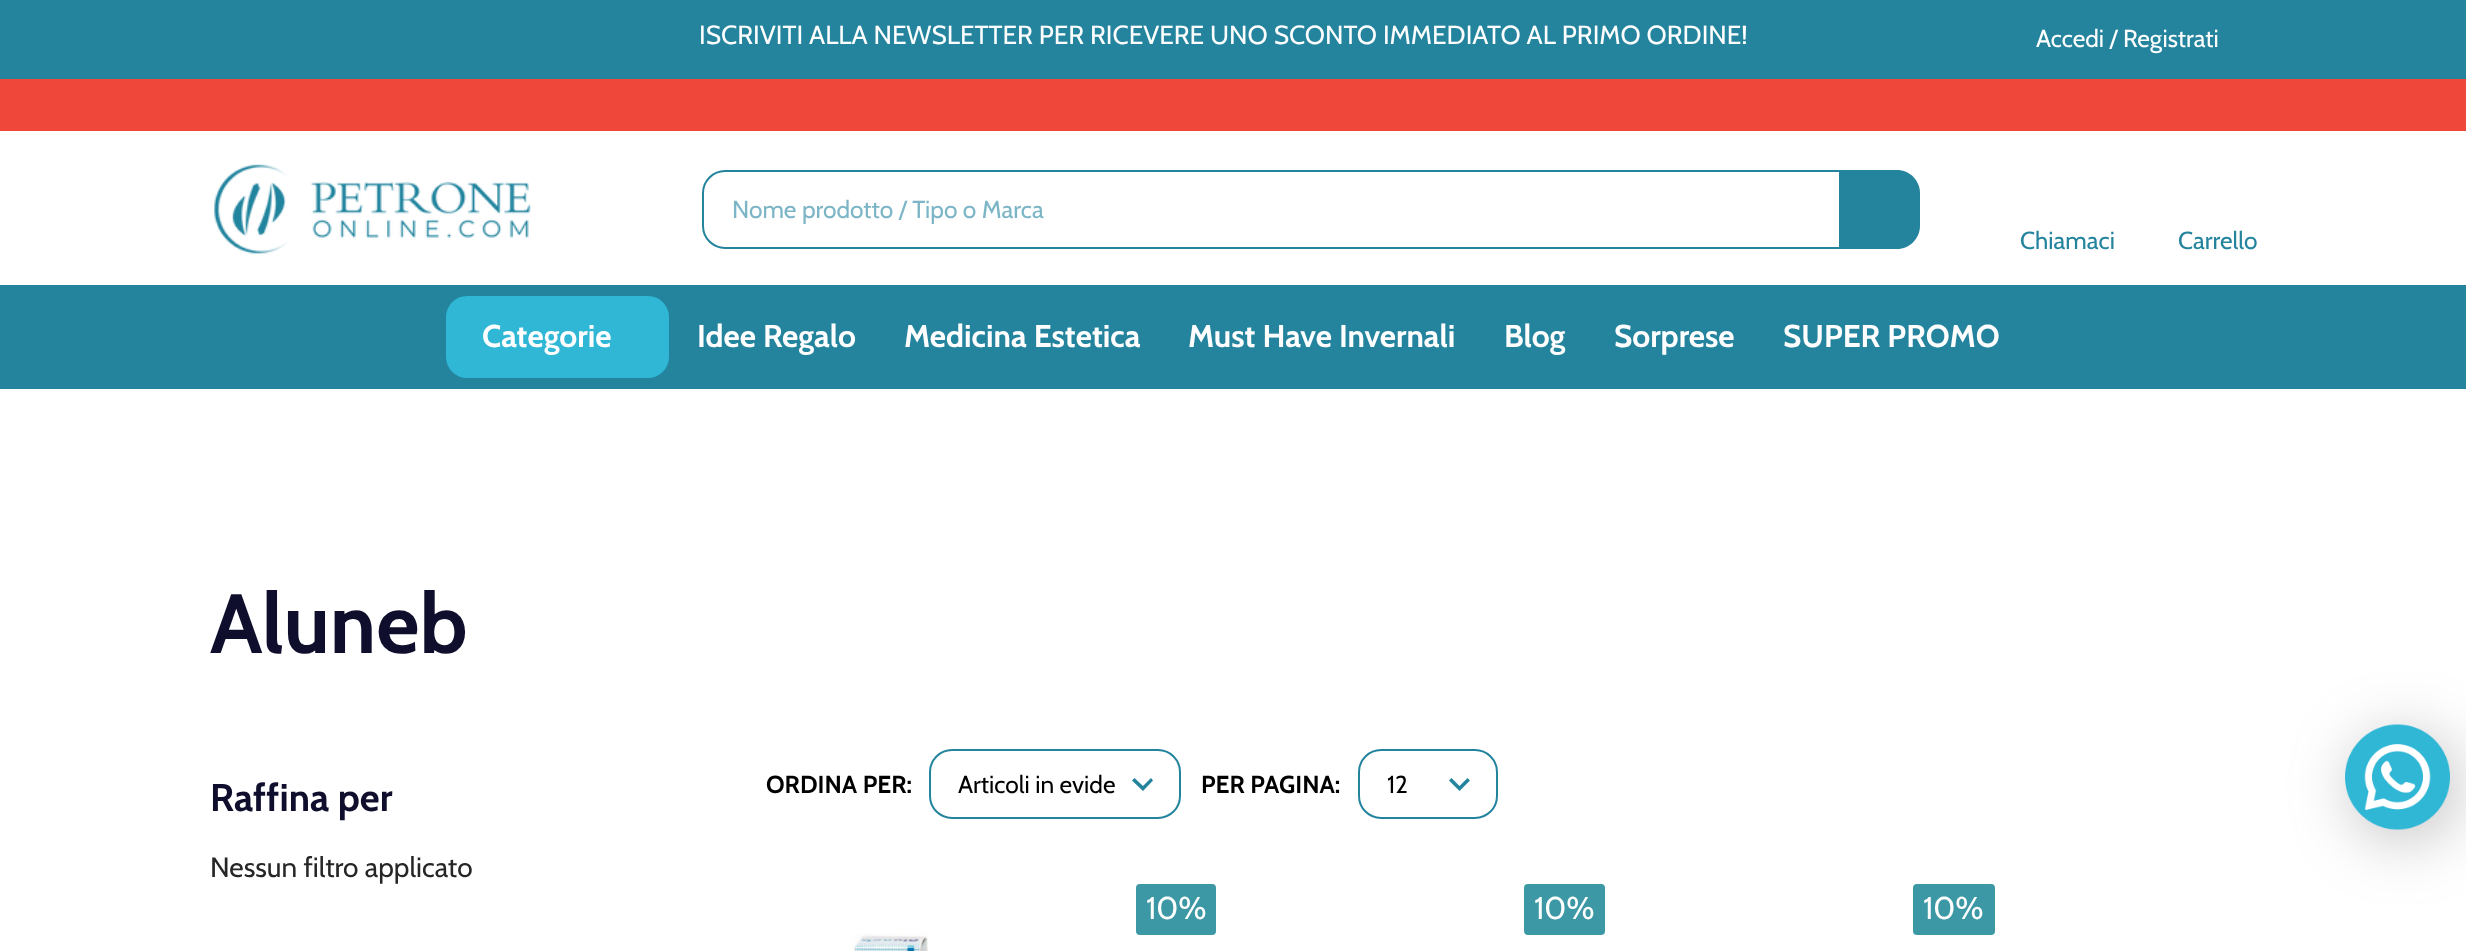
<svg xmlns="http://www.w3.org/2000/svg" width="2466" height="951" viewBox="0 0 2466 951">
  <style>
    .t1 { font: 26.25px Cabin; fill: #fefefe; }
    .t2 { font: 24.5px Cabin; fill: #fefefe; }
    .t3 { font: 24.5px Cabin; fill: #7cb5c5; }
    .t4 { font: 24.5px Cabin; fill: #24849e; }
    .t5 { font: bold 31.5px Cabin; fill: #fefefe; }
    .t6 { font: bold 84px Cabin; fill: #0f0f2d; }
    .t7 { font: bold 38.5px Cabin; fill: #0f0f2d; }
    .t8 { font: 28px Cabin; fill: #262626; }
    .t9 { font: bold 24.5px Cabin; fill: #000; }
    .t10 { font: 24.5px Cabin; fill: #000; }
    .t11 { font: 31.5px Cabin; fill: #fefefe; }
  </style>
  <rect width="100%" height="100%" fill="#fff"/>
  <rect x="0" y="0" width="2466" height="79" fill="#24849e"/>
  <text x="699" y="44" class="t1">ISCRIVITI ALLA NEWSLETTER PER RICEVERE UNO SCONTO IMMEDIATO AL PRIMO ORDINE!</text>
  <text x="2036" y="47" class="t2">Accedi / Registrati</text>
  <rect x="0" y="79" width="2466" height="52" fill="#f0473b"/>
  <image x="214" y="164" width="317" height="90" href="images/1.png"/>
  <path d="M725 171H1840V248H725C713 248 703 238 703 226V193C703 181 713 171 725 171Z" fill="none" stroke="#24849e" stroke-width="2"/>
  <text x="732" y="218" class="t3">Nome prodotto / Tipo o Marca</text>
  <path d="M1841 170H1897C1909.5 170 1920 180.5 1920 193V226C1920 238.5 1909.5 249 1897 249H1841Z" fill="#24849e"/>
  <text x="2020" y="249" class="t4">Chiamaci</text>
  <text x="2178" y="249" class="t4">Carrello</text>
  <rect x="0" y="285" width="2466" height="104" fill="#24849e"/>
  <rect x="446" y="296" width="223" height="82" rx="21" fill="#30b7d6"/>
  <text x="482" y="347" class="t5">Categorie</text>
  <text x="697" y="347" class="t5">Idee Regalo</text>
  <text x="904" y="347" class="t5">Medicina Estetica</text>
  <text x="1188" y="347" class="t5">Must Have Invernali</text>
  <text x="1504" y="347" class="t5">Blog</text>
  <text x="1614" y="347" class="t5">Sorprese</text>
  <text x="1783" y="347" class="t5">SUPER PROMO</text>
  <text x="210" y="653" class="t6">Aluneb</text>
  <text x="210" y="811" class="t7">Raffina per</text>
  <text x="210" y="877" class="t8">Nessun filtro applicato</text>
  <text x="766" y="793" class="t9">ORDINA PER:</text>
  <path d="M1151 778L1143 786L1134.5 778L1132 780.5L1143 791L1153 780.5Z" fill="#24849e"/>
  <rect x="930" y="750" width="250" height="68" rx="22" fill="none" stroke="#24849e" stroke-width="2"/>
  <text x="958" y="793" class="t10">Articoli in evide</text>
  <text x="1201" y="793" class="t9">PER PAGINA:</text>
  <path d="M1467.5 778L1459.5 786L1451.5 778L1449 780.5L1459.5 791L1470 780.5Z" fill="#24849e"/>
  <rect x="1359" y="750" width="138" height="68" rx="22" fill="none" stroke="#24849e" stroke-width="2"/>
  <text x="1387" y="793" class="t10">12</text>
  <rect x="1136" y="884" width="80" height="51" rx="4" fill="#3c98a4"/>
  <text x="1146" y="919" class="t11">10%</text>
  <rect x="1524" y="884" width="81" height="51" rx="4" fill="#3c98a4"/>
  <text x="1534" y="919" class="t11">10%</text>
  <rect x="1913" y="884" width="82" height="51" rx="4" fill="#3c98a4"/>
  <text x="1923" y="919" class="t11">10%</text>
  <image x="852" y="933" width="76" height="18" href="images/2.png"/>
  <rect x="2350" y="733" width="109" height="109" rx="54.5" fill="#71717166" filter="blur(30.5px)"/>
  <image x="2345" y="724" width="105" height="106" href="images/3.png"/>
</svg>
